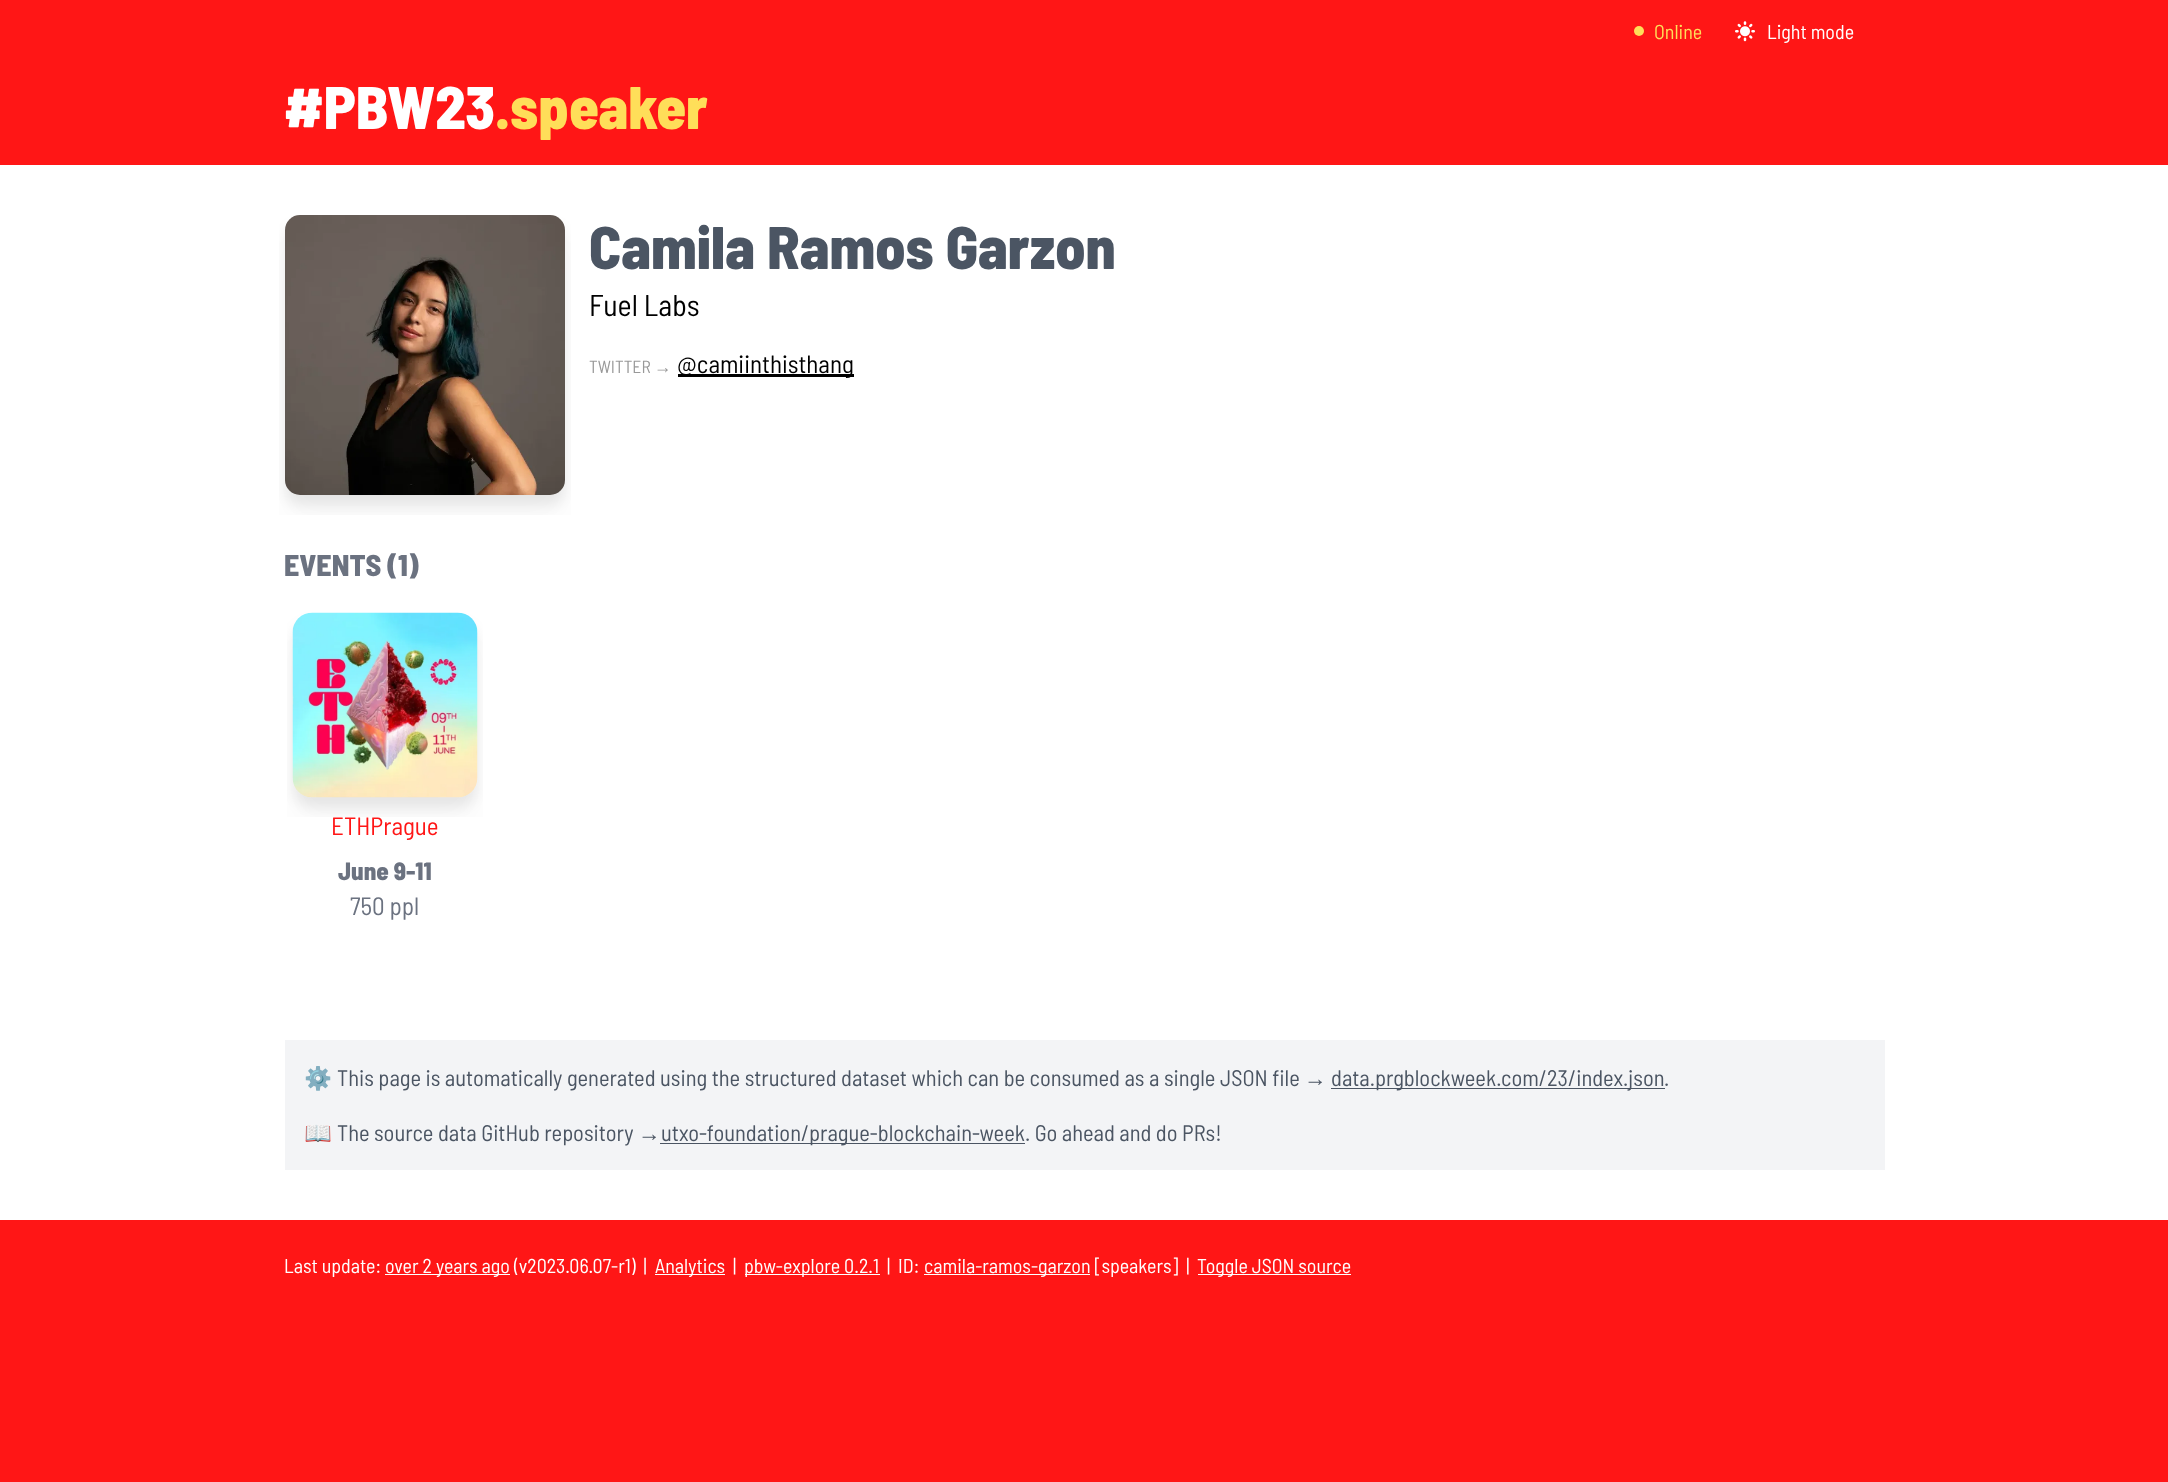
<svg xmlns="http://www.w3.org/2000/svg" width="2168" height="1482" viewBox="0 0 2168 1482">
  <style>
    .t1 { font: 20px Barlow Semi Condensed; fill: #ffde59; }
    .t2 { font: 20px Barlow Semi Condensed; fill: #fff; }
    .t3 { font: 800 60px Barlow Semi Condensed; fill: #fff; }
    .t4 { font: 800 60px Barlow Semi Condensed; fill: #ffde59; }
    .t5 { font: 800 60px Barlow Semi Condensed; fill: #4b5563; }
    .t6 { font: 30px Barlow Semi Condensed; fill: #000; }
    .t7 { font: 17.5px Barlow Semi Condensed; fill: #999; }
    .t8 { font: 17.5px Liberation Sans; fill: #999; }
    .t9 { font: 25px Barlow Semi Condensed; fill: #000; }
    .t10 { font: 800 30px Barlow Semi Condensed; fill: #6b7280; }
    .t11 { font: 25px Barlow Semi Condensed; fill: #ff1616; }
    .t12 { font: 800 25px Barlow Semi Condensed; fill: #6b7280; }
    .t13 { font: 25px Barlow Semi Condensed; fill: #6b7280; }
    .t14 { font: 22.5px Noto Color Emoji; fill: #4b5563; }
    .t15 { font: 22.5px Barlow Semi Condensed; fill: #4b5563; }
    .t16 { font: 22.5px Liberation Sans; fill: #4b5563; }
  </style>
  <rect width="100%" height="100%" fill="#ff1616"/>
  <circle cx="1639" cy="31" r="5" fill="#ffde59"/>
  <text x="1654" y="39" class="t1">Online</text>
  <image x="1735" y="21" width="20" height="21" href="images/1.png"/>
  <text x="1767" y="39" class="t2">Light mode</text>
  <rect x="0" y="165" width="2168" height="1055" fill="#fff"/>
  <text x="284" y="129" class="t3">#PBW23</text>
  <text x="495" y="129" class="t4">.speaker</text>
  <image x="279" y="215" width="292" height="300" href="images/2.png"/>
  <text x="589" y="269" class="t5">Camila Ramos Garzon</text>
  <text x="589" y="316" class="t6">Fuel Labs</text>
  <text x="589" y="373" class="t7">TWITTER</text>
  <text x="654" y="373" class="t8">→</text>
  <rect x="678" y="374" width="176" height="3" fill="#000"/>
  <text x="677" y="373" class="t9">@camiinthisthang</text>
  <text x="284" y="576" class="t10">EVENTS (1)</text>
  <image x="287" y="612" width="196" height="205" href="images/3.png"/>
  <text x="331" y="835" class="t11">ETHPrague</text>
  <text x="338" y="880" class="t12">June 9-11</text>
  <text x="350" y="915" class="t13">750 ppl</text>
  <rect x="285" y="1040" width="1600" height="130" fill="#f3f4f6"/>
  <text x="304" y="1086" class="t14">⚙</text>
  <text x="337" y="1086" class="t15">This page is automatically generated using the structured dataset which can be consumed as a single JSON file</text>
  <text x="1304" y="1086" class="t16">→</text>
  <rect x="1331" y="1088" width="334" height="1" fill="#4b5563"/>
  <text x="1331" y="1086" class="t15">data.prgblockweek.com/23/index.json</text>
  <text x="1664" y="1086" class="t15">.</text>
  <text x="304" y="1141" class="t14">📖</text>
  <text x="337" y="1141" class="t15">The source data GitHub repository</text>
  <text x="638" y="1141" class="t16">→</text>
  <rect x="660" y="1143" width="365" height="1" fill="#4b5563"/>
  <text x="661" y="1141" class="t15">utxo-foundation/prague-blockchain-week. Go ahead and do PRs!</text>
  <text x="284" y="1273" class="t2">Last update:</text>
  <rect x="385" y="1274" width="125" height="1" fill="#fff"/>
  <text x="385" y="1273" class="t2" xml:space="preserve">over 2 years ago (v2023.06.07-r1)  |</text>
  <rect x="655" y="1274" width="70" height="1" fill="#fff"/>
  <text x="655" y="1273" class="t2">Analytics</text>
  <text x="733" y="1273" class="t2">|</text>
  <rect x="745" y="1274" width="135" height="1" fill="#fff"/>
  <text x="744" y="1273" class="t2">pbw-explore 0.2.1</text>
  <text x="887" y="1273" class="t2" xml:space="preserve">|  ID:</text>
  <rect x="924" y="1274" width="166" height="1" fill="#fff"/>
  <text x="924" y="1273" class="t2" xml:space="preserve">camila-ramos-garzon [speakers]  |</text>
  <rect x="1198" y="1274" width="153" height="1" fill="#fff"/>
  <text x="1197" y="1273" class="t2">Toggle JSON source</text>
</svg>
